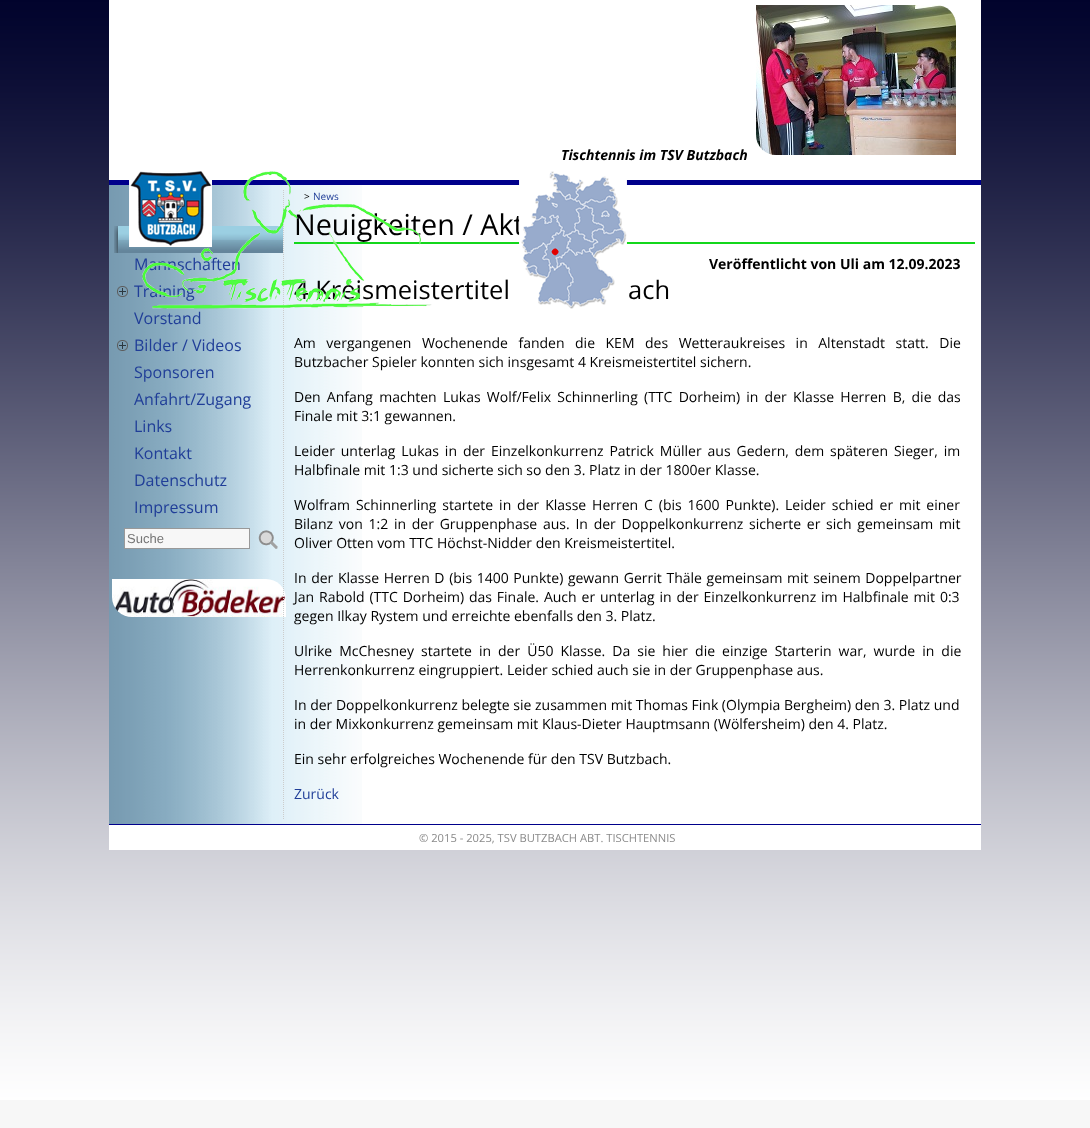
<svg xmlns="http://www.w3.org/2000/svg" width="1090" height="1128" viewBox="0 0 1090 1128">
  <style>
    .t1 { font: italic bold 14px Open Sans; fill: #000; }
    .t2 { font: 16px Open Sans; fill: #203e98; }
    .t3 { font: 10px Open Sans; fill: #000; }
    .t4 { font: 10px Open Sans; fill: #203e98; }
    .t5 { font: 28.75px Open Sans; fill: #000; }
    .t6 { font: 25.5px Open Sans; fill: #000; }
    .t7 { font: 13px Liberation Sans; fill: #757575; }
    .t8 { font: bold 14px Open Sans; fill: #000; }
    .t9 { font: 14px Open Sans; fill: #000; }
    .t10 { font: 14px Open Sans; fill: #203e98; }
    .t11 { font: 11.2px Open Sans; fill: #8a8a8a; }
  </style>
  <rect width="100%" height="100%" fill="#f7f7f7"/>
  <image x="0" y="0" width="1090" height="1100" href="images/1.png"/>
  <rect x="109" y="0" width="872" height="180" fill="#fff"/>
  <text x="561" y="160" class="t1">Tischtennis im TSV Butzbach</text>
  <image x="756" y="5" width="200" height="150" href="images/2.png"/>
  <rect x="362" y="185" width="619" height="639" fill="#fff"/>
  <image x="109" y="185" width="253" height="639" href="images/4.png"/>
  <rect x="109" y="180" width="872" height="5" fill="#00008b"/>
  <image x="114" y="226" width="169" height="27" href="images/5.png"/>
  <text x="134" y="270" class="t2">Mannschaften</text>
  <text x="134" y="297" class="t2">Training</text>
  <image x="112" y="579" width="174" height="38" href="images/8.png"/>
  <path d="M283.5 190V819" fill="none" stroke="#ccc" stroke-dasharray="1 1"/>
  <text x="304" y="200" class="t3">&gt;</text>
  <text x="313" y="200" class="t4">News</text>
  <rect x="294" y="242" width="681" height="2" fill="#13d71b"/>
  <text x="294" y="235" class="t5">Neuigkeiten / Akt</text>
  <text x="294" y="299" class="t6">4 Kreismeistertitel</text>
  <image x="129" y="171" width="498" height="138" href="images/3.png"/>
  <rect x="109" y="824" width="872" height="1" fill="#00008b"/>
  <image x="117" y="286" width="11" height="11" href="images/6.png"/>
  <text x="134" y="324" class="t2">Vorstand</text>
  <image x="117" y="340" width="11" height="11" href="images/6.png"/>
  <text x="134" y="351" class="t2">Bilder / Videos</text>
  <text x="134" y="378" class="t2">Sponsoren</text>
  <text x="134" y="405" class="t2">Anfahrt/Zugang</text>
  <text x="134" y="432" class="t2">Links</text>
  <text x="134" y="459" class="t2">Kontakt</text>
  <text x="134" y="486" class="t2">Datenschutz</text>
  <text x="134" y="513" class="t2">Impressum</text>
  <rect x="124.5" y="528.5" width="125" height="20" fill="#f7f7f7" stroke="#999"/>
  <text x="127" y="543" class="t7">Suche</text>
  <image x="258" y="530" width="20" height="19" href="images/7.png"/>
  <text x="709" y="269" class="t8">Veröffentlicht von Uli am 12.09.2023</text>
  <text x="628" y="299" class="t6">ach</text>
  <text x="294" y="348" word-spacing="6.9" class="t9">Am vergangenen Wochenende fanden die KEM des Wetteraukreises in Altenstadt statt. Die</text>
  <text x="294" y="367" class="t9">Butzbacher Spieler konnten sich insgesamt 4 Kreismeistertitel sichern.</text>
  <text x="294" y="402" word-spacing="2.6" class="t9">Den Anfang machten Lukas Wolf/Felix Schinnerling (TTC Dorheim) in der Klasse Herren B, die das</text>
  <text x="294" y="421" class="t9">Finale mit 3:1 gewannen.</text>
  <text x="294" y="456" word-spacing="2.25" class="t9">Leider unterlag Lukas in der Einzelkonkurrenz Patrick Müller aus Gedern, dem späteren Sieger, im</text>
  <text x="294" y="475" class="t9">Halbfinale mit 1:3 und sicherte sich so den 3. Platz in der 1800er Klasse.</text>
  <text x="294" y="510" word-spacing="2.25" class="t9">Wolfram Schinnerling startete in der Klasse Herren C (bis 1600 Punkte). Leider schied er mit einer</text>
  <text x="294" y="529" word-spacing="2.1" class="t9">Bilanz von 1:2 in der Gruppenphase aus. In der Doppelkonkurrenz sicherte er sich gemeinsam mit</text>
  <text x="294" y="548" class="t9">Oliver Otten vom TTC Höchst-Nidder den Kreismeistertitel.</text>
  <text x="294" y="583" word-spacing="1" class="t9">In der Klasse Herren D (bis 1400 Punkte) gewann Gerrit Thäle gemeinsam mit seinem Doppelpartner</text>
  <text x="294" y="602" word-spacing="1.25" class="t9">Jan Rabold (TTC Dorheim) das Finale. Auch er unterlag in der Einzelkonkurrenz im Halbfinale mit 0:3</text>
  <text x="294" y="621" class="t9">gegen Ilkay Rystem und erreichte ebenfalls den 3. Platz.</text>
  <text x="294" y="656" word-spacing="3.4" class="t9">Ulrike McChesney startete in der Ü50 Klasse. Da sie hier die einzige Starterin war, wurde in die</text>
  <text x="294" y="675" class="t9">Herrenkonkurrenz eingruppiert. Leider schied auch sie in der Gruppenphase aus.</text>
  <text x="294" y="710" class="t9">In der Doppelkonkurrenz belegte sie zusammen mit Thomas Fink (Olympia Bergheim) den 3. Platz und</text>
  <text x="294" y="729" class="t9">in der Mixkonkurrenz gemeinsam mit Klaus-Dieter Hauptmsann (Wölfersheim) den 4. Platz.</text>
  <text x="294" y="764" class="t9">Ein sehr erfolgreiches Wochenende für den TSV Butzbach.</text>
  <text x="294" y="799" class="t10">Zurück</text>
  <rect x="109" y="825" width="872" height="25" fill="#fff"/>
  <text x="419" y="842" class="t11">© 2015 - 2025, TSV BUTZBACH ABT. TISCHTENNIS</text>
</svg>
